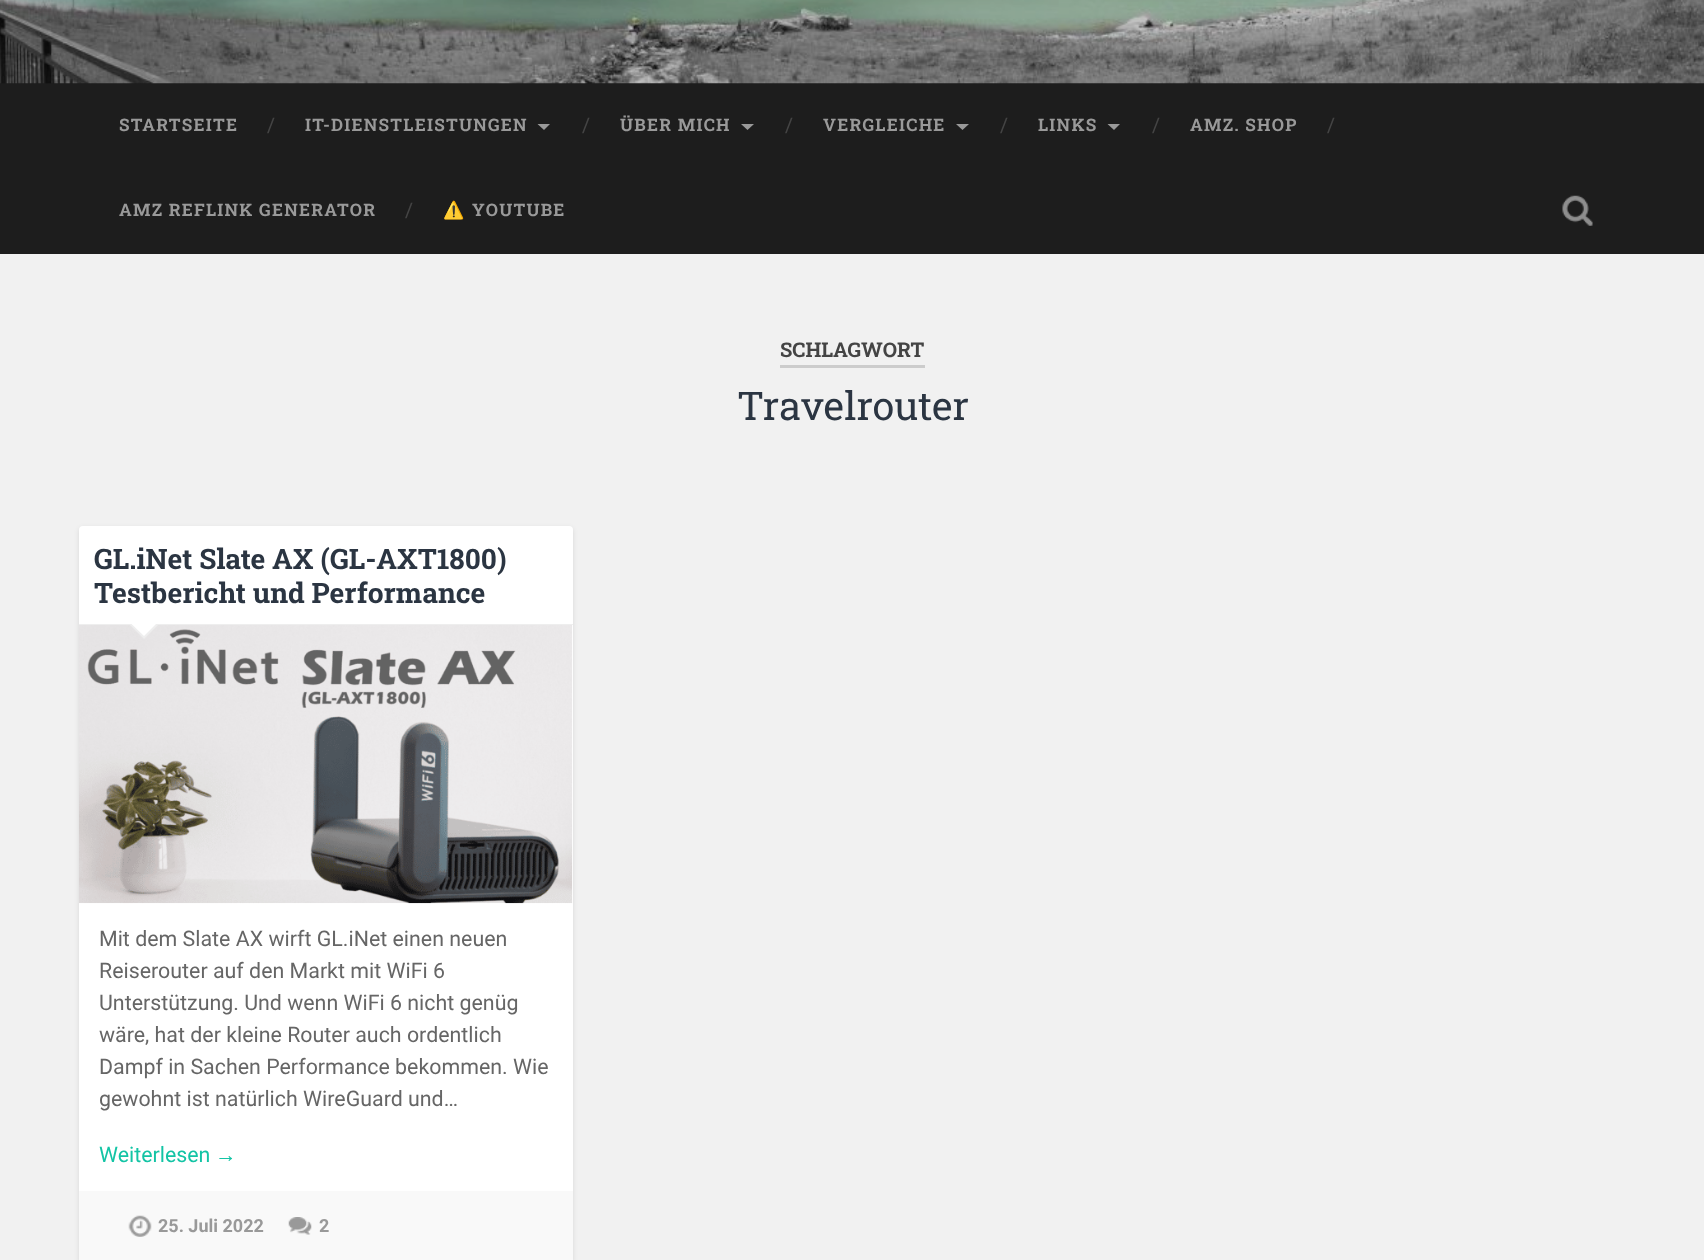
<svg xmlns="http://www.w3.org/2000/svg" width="1704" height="1260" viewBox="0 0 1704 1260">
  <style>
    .t1 { font: bold 17.25px Roboto Slab; letter-spacing: 1.25px; fill: #999; }
    .t2 { font: 20px Roboto Slab; fill: #444; }
    .t3 { font: bold 17.25px Noto Color Emoji; letter-spacing: 1.25px; fill: #999; }
    .t4 { font: bold 20.25px Roboto Slab; fill: #444; }
    .t5 { font: 39.5px Roboto Slab; fill: #2b3542; }
    .t6 { font: bold 28.1px Roboto Slab; fill: #2b3542; }
    .t7 { font: 21.4px Roboto; fill: #666; }
    .t8 { font: 21.4px Roboto; fill: #13c4a5; }
    .t9 { font: 21.4px Liberation Sans; fill: #13c4a5; }
    .t10 { font: bold 18px Roboto; fill: #999; }
  </style>
  <rect width="100%" height="100%" fill="#f1f1f1"/>
  <rect x="0" y="83" width="1704" height="171" fill="#1d1d1d"/>
  <image x="0" y="0" width="1704" height="84" href="images/1.png"/>
  <text x="119" y="131" class="t1">STARTSEITE</text>
  <text x="267" y="132" class="t2">/</text>
  <text x="305" y="131" class="t1">IT-DIENSTLEISTUNGEN</text>
  <path d="M537.5 124H550L544 130Z" fill="#999"/>
  <text x="582" y="132" class="t2">/</text>
  <text x="620" y="131" class="t1">ÜBER MICH</text>
  <path d="M741 124H754L747.5 130Z" fill="#999"/>
  <text x="785" y="132" class="t2">/</text>
  <text x="823" y="131" class="t1">VERGLEICHE</text>
  <path d="M956 124H969L962.5 130Z" fill="#999"/>
  <text x="1000" y="132" class="t2">/</text>
  <text x="1038" y="131" class="t1">LINKS</text>
  <path d="M1107.5 124H1120L1114 130Z" fill="#999"/>
  <text x="1152" y="132" class="t2">/</text>
  <text x="1190" y="131" class="t1">AMZ. SHOP</text>
  <text x="1327" y="132" class="t2">/</text>
  <text x="119" y="216" class="t1">AMZ REFLINK GENERATOR</text>
  <text x="405" y="217" class="t2">/</text>
  <text x="443" y="216" class="t3">⚠️</text>
  <text x="472" y="216" class="t1">YOUTUBE</text>
  <image x="1562" y="195" width="31" height="31" href="images/2.png"/>
  <rect x="780" y="365" width="145" height="3" fill="#ccc"/>
  <text x="780" y="357" class="t4">SCHLAGWORT</text>
  <text x="737" y="420" class="t5">Travelrouter</text>
  <rect x="79" y="528" width="494" height="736" rx="4" fill="#0000001a" filter="blur(2.5px)"/>
  <rect x="79" y="526" width="494" height="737" rx="4" fill="#fff"/>
  <rect x="79" y="624" width="494" height="1" fill="#eee"/>
  <text x="94" y="569" class="t6">GL.iNet Slate AX (GL-AXT1800)</text>
  <text x="94" y="603" class="t6">Testbericht und Performance</text>
  <image x="79" y="625" width="494" height="279" href="images/3.png"/>
  <path d="M129 624H159L144 639Z" fill="#eee"/>
  <path d="M130 622.5H157.5L144 636Z" fill="#fff"/>
  <text x="99" y="946" class="t7">Mit dem Slate AX wirft GL.iNet einen neuen</text>
  <text x="99" y="978" class="t7">Reiserouter auf den Markt mit WiFi 6</text>
  <text x="99" y="1010" class="t7">Unterstützung. Und wenn WiFi 6 nicht genüg</text>
  <text x="99" y="1042" class="t7">wäre, hat der kleine Router auch ordentlich</text>
  <text x="99" y="1074" class="t7">Dampf in Sachen Performance bekommen. Wie</text>
  <text x="99" y="1106" class="t7">gewohnt ist natürlich WireGuard und…</text>
  <text x="99" y="1162" class="t8">Weiterlesen</text>
  <text x="215" y="1162" class="t9">→</text>
  <rect x="79" y="1191" width="494" height="69" fill="#f9f9f9"/>
  <image x="128" y="1215" width="24" height="22" href="images/4.png"/>
  <text x="158" y="1232" class="t10">25. Juli 2022</text>
  <image x="288" y="1217" width="24" height="18" href="images/5.png"/>
  <text x="319" y="1232" class="t10">2</text>
</svg>
